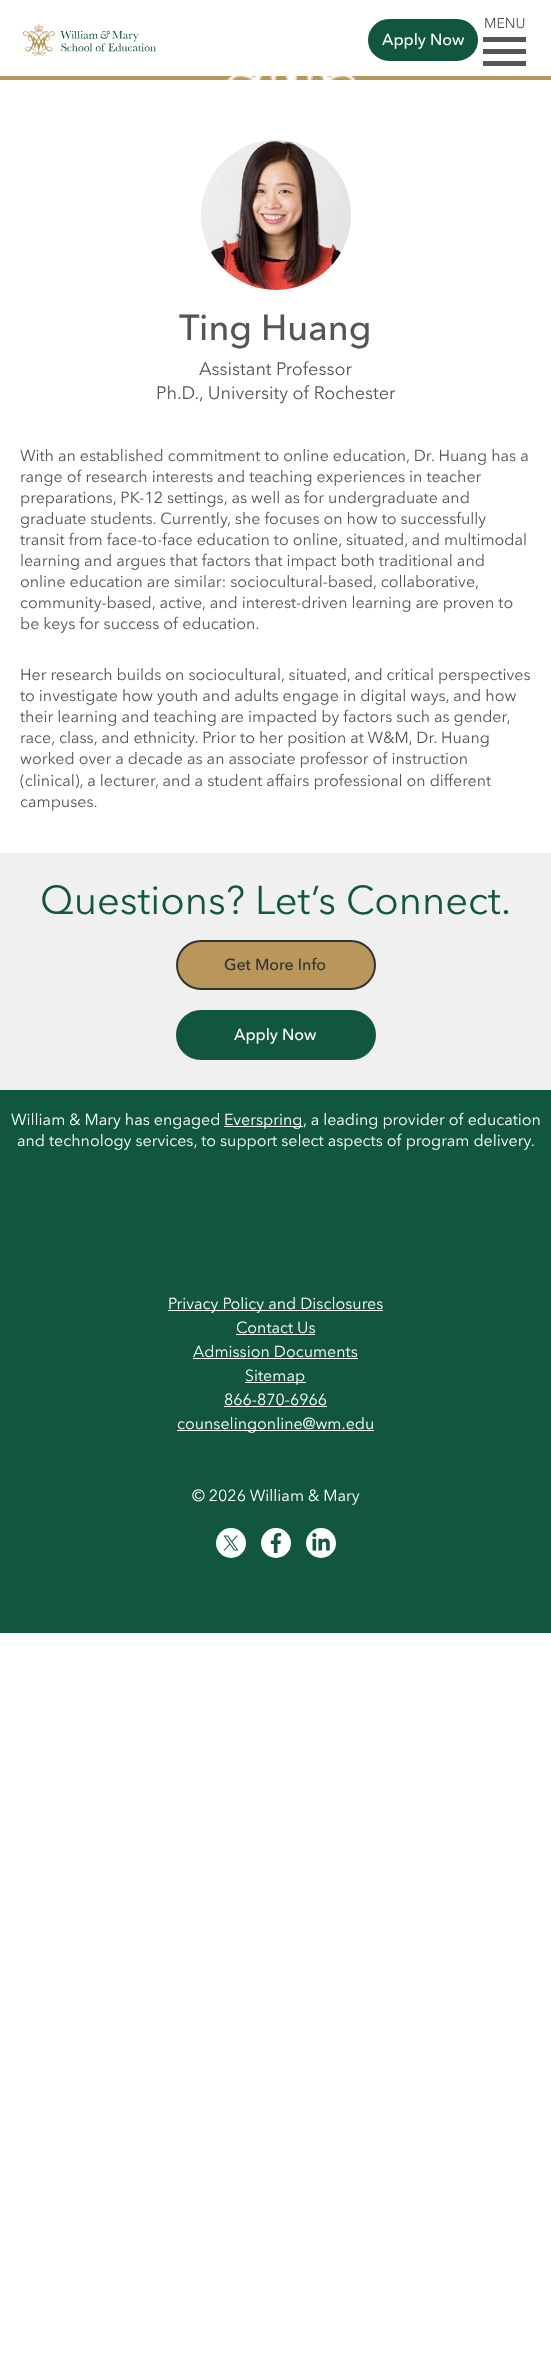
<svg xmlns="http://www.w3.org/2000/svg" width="551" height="2369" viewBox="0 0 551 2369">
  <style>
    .t1 { font: 500 16px Avenir Next; fill: #fff; }
    .t2 { font: 14px Avenir Next; fill: #555; }
    .t3 { font: 500 36px Avenir Next; fill: #555; }
    .t4 { font: 18px Avenir Next; fill: #555; }
    .t5 { font: 16px Avenir Next; fill: #555; }
    .t6 { font: 40px Avenir Next; fill: #115740; }
    .t7 { font: 500 16px Avenir Next; fill: #333; }
    .t8 { font: 16px Avenir Next; fill: #fff; }
  </style>
  <rect width="100%" height="100%" fill="#fff"/>
  <rect x="0" y="76" width="551" height="4" fill="#b9975b"/>
  <image x="22" y="24" width="134" height="32" href="images/1.png"/>
  <rect x="369" y="20" width="108" height="40" rx="20" fill="#115740" stroke="#115740" stroke-width="2"/>
  <text x="382" y="45" class="t1">Apply Now</text>
  <text x="484" y="28" class="t2">MENU</text>
  <path d="M483 66V61H526V66ZM483 54V49H526V54ZM483 37H526V42H483Z" fill="#555"/>
  <image x="227" y="76" width="129" height="4" href="images/2.png"/>
  <image x="201" y="140" width="150" height="150" href="images/3.png"/>
  <text x="179" y="340" class="t3">Ting Huang</text>
  <text x="199" y="375" class="t4">Assistant Professor</text>
  <text x="156" y="399" class="t4">Ph.D., University of Rochester</text>
  <text x="20" y="461" class="t5">With an established commitment to online education, Dr. Huang has a</text>
  <text x="20" y="482" class="t5">range of research interests and teaching experiences in teacher</text>
  <text x="20" y="503" class="t5">preparations, PK-12 settings, as well as for undergraduate and</text>
  <text x="20" y="524" class="t5">graduate students. Currently, she focuses on how to successfully</text>
  <text x="20" y="545" class="t5">transit from face-to-face education to online, situated, and multimodal</text>
  <text x="20" y="566" class="t5">learning and argues that factors that impact both traditional and</text>
  <text x="20" y="587" class="t5">online education are similar: sociocultural-based, collaborative,</text>
  <text x="20" y="608" class="t5">community-based, active, and interest-driven learning are proven to</text>
  <text x="20" y="629" class="t5">be keys for success of education.</text>
  <text x="20" y="680" class="t5">Her research builds on sociocultural, situated, and critical perspectives</text>
  <text x="20" y="701" class="t5">to investigate how youth and adults engage in digital ways, and how</text>
  <text x="20" y="722" class="t5">their learning and teaching are impacted by factors such as gender,</text>
  <text x="20" y="743" class="t5">race, class, and ethnicity. Prior to her position at W&amp;M, Dr. Huang</text>
  <text x="20" y="764" class="t5">worked over a decade as an associate professor of instruction</text>
  <text x="20" y="786" class="t5">(clinical), a lecturer, and a student affairs professional on different</text>
  <text x="20" y="807" class="t5">campuses.</text>
  <rect x="0" y="853" width="551" height="237" fill="#f0f0f0"/>
  <text x="40" y="914" class="t6">Questions? Let’s Connect.</text>
  <rect x="177" y="941" width="198" height="48" rx="24" fill="#b9975b" stroke="#333" stroke-width="2"/>
  <text x="224" y="970" class="t7">Get More Info</text>
  <rect x="177" y="1011" width="198" height="48" rx="24" fill="#115740" stroke="#115740" stroke-width="2"/>
  <text x="234" y="1040" class="t1">Apply Now</text>
  <rect x="0" y="1090" width="551" height="543" fill="#115740"/>
  <text x="11" y="1125" class="t8">William &amp; Mary has engaged</text>
  <rect x="224" y="1126" width="79" height="1" fill="#fff"/>
  <text x="224" y="1125" class="t8">Everspring</text>
  <text x="303" y="1125" class="t8">, a leading provider of education</text>
  <text x="17" y="1146" class="t8">and technology services, to support select aspects of program delivery.</text>
  <rect x="168" y="1310" width="215" height="1" fill="#fff"/>
  <text x="168" y="1309" class="t8">Privacy Policy and Disclosures</text>
  <text x="236" y="1333" class="t8">Contact Us</text>
  <rect x="236" y="1334" width="79" height="1" fill="#fff"/>
  <text x="193" y="1357" class="t8">Admission Documents</text>
  <rect x="193" y="1358" width="165" height="1" fill="#fff"/>
  <rect x="245" y="1382" width="61" height="1" fill="#fff"/>
  <text x="245" y="1381" class="t8">Sitemap</text>
  <text x="224" y="1405" class="t8">866-870-6966</text>
  <rect x="224" y="1406" width="103" height="1" fill="#fff"/>
  <rect x="177" y="1430" width="197" height="1" fill="#fff"/>
  <text x="177" y="1429" class="t8">counselingonline@wm.edu</text>
  <text x="192" y="1501" class="t8">© 2026 William &amp; Mary</text>
  <circle cx="231" cy="1543" r="15" fill="#fff"/>
  <image x="223" y="1535" width="16" height="16" href="images/4.png"/>
  <circle cx="276" cy="1543" r="15" fill="#fff"/>
  <image x="270" y="1533" width="12" height="20" href="images/5.png"/>
  <circle cx="321" cy="1543" r="15" fill="#fff"/>
  <image x="312" y="1533" width="18" height="18" href="images/6.png"/>
</svg>
